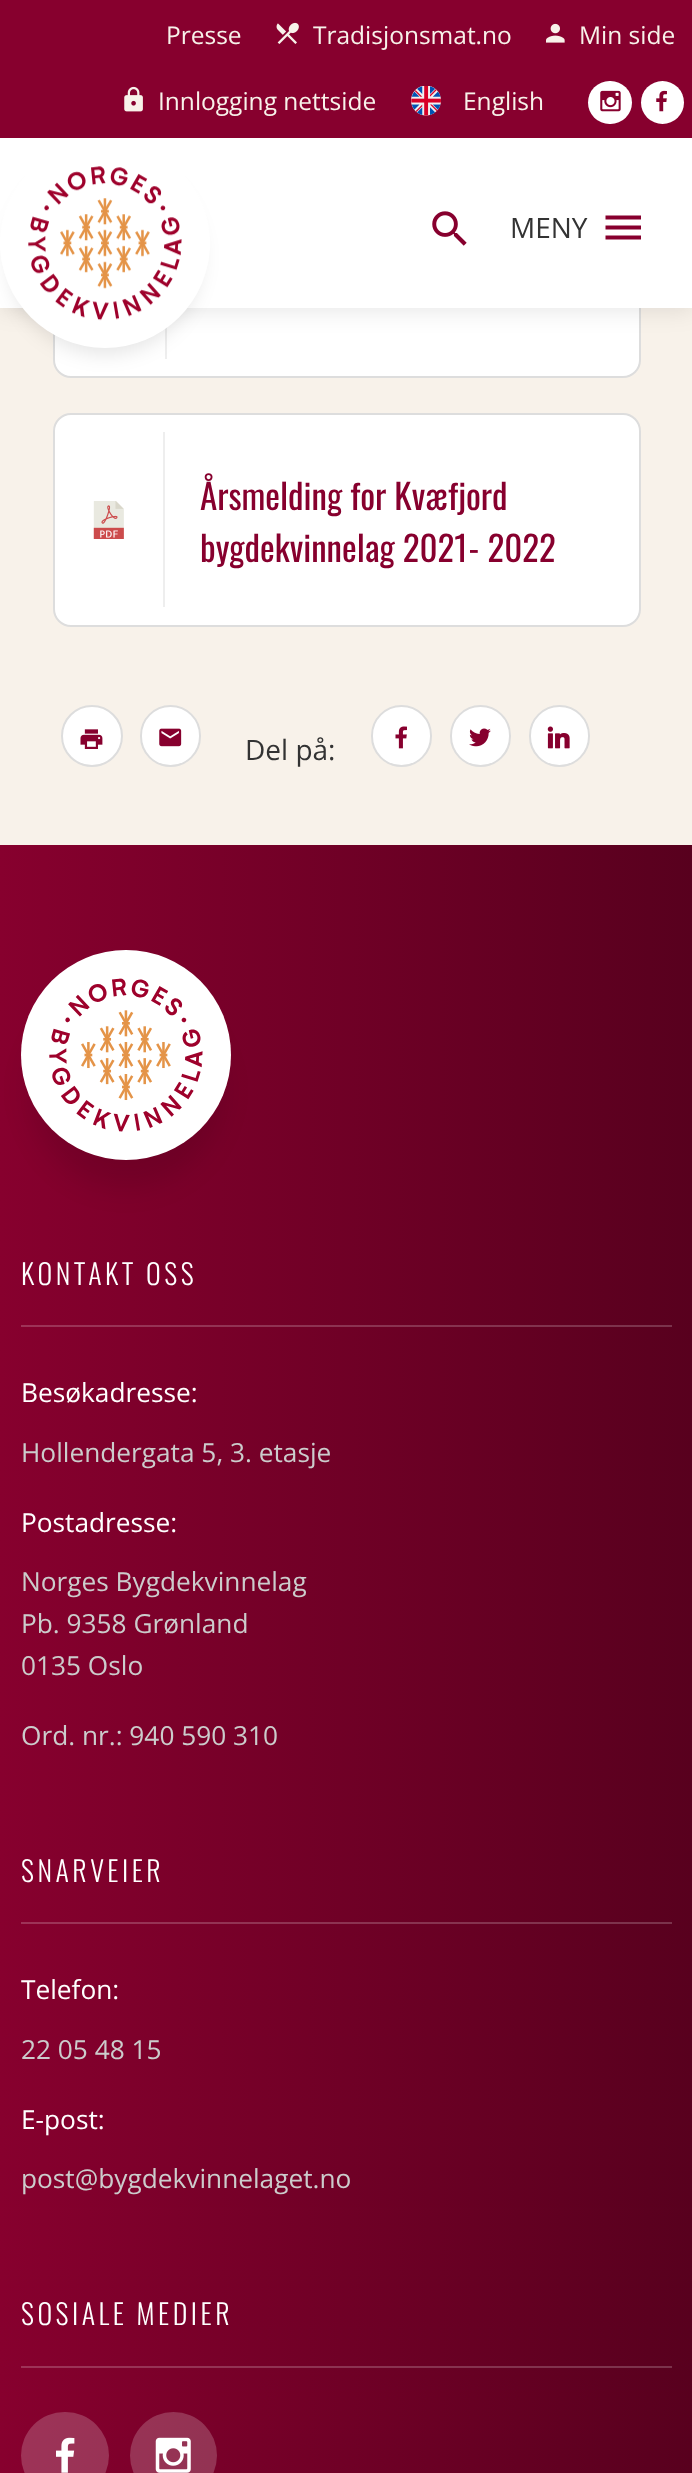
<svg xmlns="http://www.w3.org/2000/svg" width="692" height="2473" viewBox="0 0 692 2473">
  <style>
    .t1 { font: 24.5px Open Sans; fill: #f8f2ea; }
    .t2 { font: 28px Open Sans; fill: #333; }
    .t3 { font: 35px Oswald; fill: #87002e; }
    .t4 { font: 300 28px Oswald; letter-spacing: 3.5px; fill: #fff; }
    .t5 { font: 26.25px Open Sans; fill: #fff; }
    .t6 { font: 26.25px Open Sans; fill: #ccc; }
  </style>
  <defs>
    <linearGradient id="g1" gradientUnits="userSpaceOnUse" x1="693" y1="1798" x2="0" y2="1798"><stop offset="0" stop-color="#58001e"/><stop offset="1" stop-color="#87002e"/></linearGradient>
    <linearGradient id="g2" gradientUnits="userSpaceOnUse" x1="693" y1="1798" x2="0" y2="1798"><stop offset="0" stop-color="#79334b"/><stop offset="1" stop-color="#9f3358"/></linearGradient>
  </defs>
  <rect width="100%" height="100%" fill="#f8f2ea"/>
  <rect x="54" y="166" width="586" height="211" rx="17" fill="#fff" stroke="#ddd" stroke-width="2"/>
  <rect x="165" y="327" width="2" height="32" fill="#eee"/>
  <rect x="0" y="2" width="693" height="308" fill="#0000001a" filter="blur(11.5px)"/>
  <rect x="0" y="0" width="692" height="138" fill="#87002e"/>
  <text x="166" y="44" class="t1">Presse</text>
  <image x="276" y="22" width="23" height="22" href="images/1.png"/>
  <text x="313" y="44" class="t1">Tradisjonsmat.no</text>
  <image x="546" y="23" width="19" height="20" href="images/2.png"/>
  <text x="579" y="44" class="t1">Min side</text>
  <image x="124" y="86" width="19" height="26" href="images/3.png"/>
  <text x="158" y="110" class="t1">Innlogging nettside</text>
  <image x="411" y="86" width="30" height="30" href="images/4.png"/>
  <text x="463" y="110" class="t1">English</text>
  <rect x="588" y="81" width="44" height="43" rx="21.5" fill="#fff"/>
  <image x="600" y="90" width="21" height="22" href="images/5.png"/>
  <circle cx="662.5" cy="102.5" r="21.5" fill="#fff"/>
  <image x="656" y="90" width="11" height="22" href="images/6.png"/>
  <rect x="0" y="138" width="692" height="170" fill="#fff"/>
  <rect x="9" y="161" width="192" height="193" rx="96" fill="#0000001a" filter="blur(9.5px)"/>
  <circle cx="105" cy="243" r="105" fill="#fff"/>
  <image x="28" y="166" width="154" height="155" href="images/7.png"/>
  <image x="432" y="211" width="35" height="35" href="images/8.png"/>
  <text x="510" y="238" class="t2">MENY</text>
  <path d="M605.5 239.5V235.5H641V239.5ZM605.5 229.5V225.5H641V229.5ZM605.5 215.5H641V219.5H605.5Z" fill="#87002e"/>
  <rect x="54" y="414" width="586" height="212" rx="17" fill="#fff" stroke="#ddd" stroke-width="2"/>
  <image x="93" y="501" width="31" height="38" href="images/9.png"/>
  <rect x="163" y="432" width="2" height="175" fill="#eee"/>
  <text x="200" y="510" class="t3">Årsmelding for Kvæfjord</text>
  <text x="200" y="562" class="t3">bygdekvinnelag 2021- 2022</text>
  <circle cx="92" cy="736" r="30" fill="#fff" stroke="#ddd" stroke-width="2"/>
  <image x="80" y="729" width="23" height="20" href="images/10.png"/>
  <rect x="141" y="706" width="59" height="60" rx="29.5" fill="#fff" stroke="#ddd" stroke-width="2"/>
  <image x="159" y="728" width="23" height="19" href="images/11.png"/>
  <text x="245" y="760" class="t2">Del på:</text>
  <rect x="372" y="706" width="59" height="60" rx="29.5" fill="#fff" stroke="#ddd" stroke-width="2"/>
  <image x="395" y="726" width="12" height="23" href="images/12.png"/>
  <rect x="451" y="706" width="59" height="60" rx="29.5" fill="#fff" stroke="#ddd" stroke-width="2"/>
  <image x="469" y="728" width="22" height="19" href="images/13.png"/>
  <rect x="530" y="706" width="59" height="60" rx="29.5" fill="#fff" stroke="#ddd" stroke-width="2"/>
  <image x="547" y="726" width="23" height="23" href="images/14.png"/>
  <rect x="0" y="845" width="692" height="1628" fill="url(#g1)"/>
  <rect x="21" y="2366" width="651" height="2" fill="url(#g2)"/>
  <rect x="21" y="1922" width="651" height="2" fill="url(#g2)"/>
  <rect x="21" y="1325" width="651" height="2" fill="url(#g2)"/>
  <rect x="30" y="994" width="192" height="193" rx="96" fill="#0000001a" filter="blur(14px)"/>
  <circle cx="126" cy="1055" r="105" fill="#fff"/>
  <image x="49" y="978" width="154" height="154" href="images/15.png"/>
  <text x="21" y="1285" class="t4">KONTAKT OSS</text>
  <text x="21" y="1402" class="t5">Besøkadresse:</text>
  <text x="21" y="1462" class="t6">Hollendergata 5, 3. etasje</text>
  <text x="21" y="1532" class="t5">Postadresse:</text>
  <text x="21" y="1591" class="t6">Norges Bygdekvinnelag</text>
  <text x="21" y="1633" class="t6">Pb. 9358 Grønland</text>
  <text x="21" y="1675" class="t6">0135 Oslo</text>
  <text x="21" y="1745" class="t6">Ord. nr.: 940 590 310</text>
  <text x="21" y="1882" class="t4">SNARVEIER</text>
  <text x="21" y="1999" class="t5">Telefon:</text>
  <text x="21" y="2059" class="t6">22 05 48 15</text>
  <text x="21" y="2129" class="t5">E-post:</text>
  <text x="21" y="2188" class="t6">post@bygdekvinnelaget.no</text>
  <text x="21" y="2325" class="t4">SOSIALE MEDIER</text>
  <rect x="21" y="2412" width="88" height="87" rx="43.5" fill="#ffffff33"/>
  <image x="56" y="2437" width="19" height="36" href="images/16.png"/>
  <circle cx="173.5" cy="2455.5" r="43.5" fill="#ffffff33"/>
  <image x="155" y="2437" width="36" height="36" href="images/17.png"/>
</svg>
